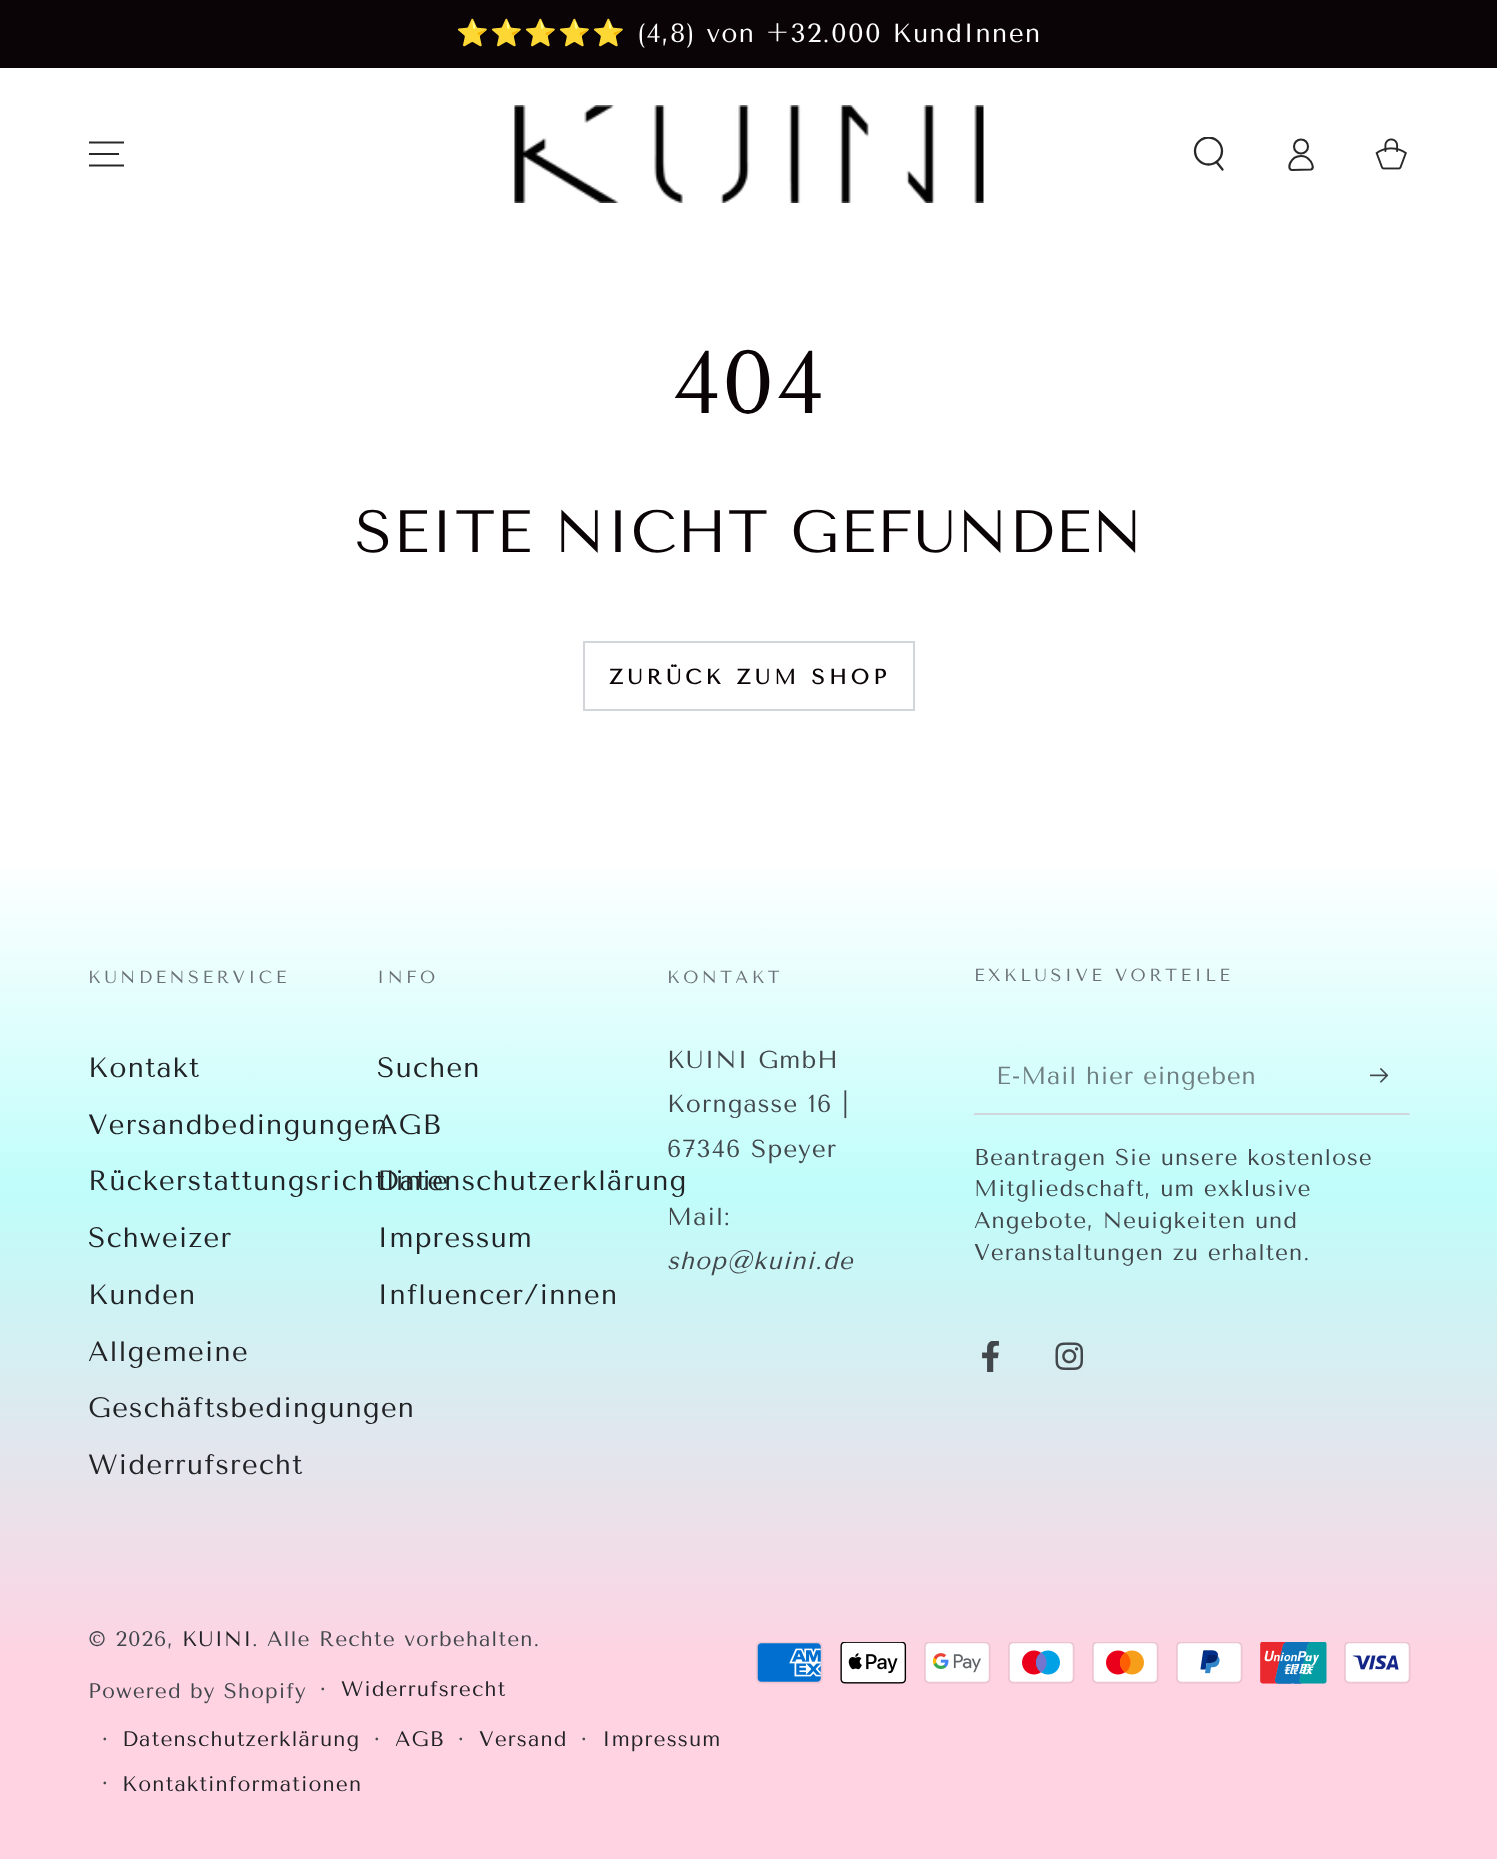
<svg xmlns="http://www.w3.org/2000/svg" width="1497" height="1865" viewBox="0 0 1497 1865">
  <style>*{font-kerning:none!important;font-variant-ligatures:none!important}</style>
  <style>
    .t1 { font: 26.25px Noto Color Emoji; letter-spacing: 1.35px; fill: #fff; }
    .t2 { font: 26.25px Tenor Sans; letter-spacing: 1.35px; fill: #fff; }
    .t3 { font: 89px Tenor Sans; letter-spacing: 0.9px; fill: #0b0407; }
    .t4 { font: 59.5px Tenor Sans; letter-spacing: 0.9px; fill: #0b0407; }
    .t5 { font: bold 21px Tenor Sans; letter-spacing: 4.25px; fill: #0b0407; }
    .t6 { font: 17.5px Tenor Sans; letter-spacing: 3.5px; fill: #6b7177; }
    .t7 { font: 28px Tenor Sans; letter-spacing: 1.05px; fill: #212326; }
    .t8 { font: 24.5px Tenor Sans; letter-spacing: 1.05px; fill: #42474c; }
    .t9 { font: italic 24.5px Tenor Sans; letter-spacing: 1.05px; fill: #42474c; }
    .t10 { font: 24.5px Tenor Sans; letter-spacing: 0.7px; fill: #6e7e81; }
    .t11 { font: 22.75px Tenor Sans; letter-spacing: 0.9px; fill: #42474c; }
    .t12 { font: 21px Tenor Sans; letter-spacing: 1.05px; fill: #42474c; }
    .t13 { font: 21px Tenor Sans; letter-spacing: 1.05px; fill: #212326; }
  </style>
  <defs>
    <clipPath id="clip1"><rect x="1192" y="137" width="35" height="35"/></clipPath>
    <linearGradient id="g1" gradientUnits="userSpaceOnUse" x1="749" y1="1859" x2="749" y2="833"><stop offset="0.19" stop-color="#ffd3e2"/><stop offset="0.65" stop-color="#bffdfa"/><stop offset="0.98" stop-color="#fff"/></linearGradient>
  </defs>
  <rect width="100%" height="100%" fill="#fff"/>
  <rect x="0" y="0" width="1497" height="68" fill="#0b0407"/>
  <text x="456" y="42" class="t1">⭐⭐⭐⭐⭐</text>
  <text x="637" y="42" class="t2">(4,8) von +32.000 KundInnen</text>
  <path d="M89 165.5H124M89 154H119M89 142.5H124" fill="none" stroke="#282828" stroke-width="2"/>
  <image x="514" y="105" width="470" height="98" href="images/1.png"/>
  <g clip-path="url(#clip1)">
    <circle cx="1208.5" cy="151" r="13.5" fill="none" stroke="#282828" stroke-width="2.3"/>
  </g>
  <path d="M1216.5 162L1222.5 169.5" fill="none" stroke="#282828" stroke-width="2.3" stroke-linecap="round"/>
  <path d="M1301 156C1290.5 156 1286 169.5 1292 170L1311 169.5C1315 168 1311 161 1309 159.5C1307 157 1304 156 1301 156Z" fill="none" stroke="#282828" stroke-width="2.1"/>
  <circle cx="1301" cy="146.5" r="7" fill="none" stroke="#282828" stroke-width="2.1"/>
  <image x="1375" y="138" width="32" height="32" href="images/2.png"/>
  <text x="672" y="413" class="t3">404</text>
  <text x="355" y="552" class="t4">SEITE NICHT GEFUNDEN</text>
  <rect x="584" y="642" width="330" height="68" fill="none" stroke="#d2d5d9" stroke-width="2"/>
  <text x="609" y="684" class="t5">ZURÜCK ZUM SHOP</text>
  <rect x="0" y="867" width="1497" height="992" fill="url(#g1)"/>
  <text x="88" y="983" class="t6">KUNDENSERVICE</text>
  <text x="88" y="1077" class="t7">Kontakt</text>
  <text x="88" y="1134" class="t7">Versandbedingungen</text>
  <text x="88" y="1190" class="t7">Rückerstattungsrichtlinie</text>
  <text x="88" y="1247" class="t7">Schweizer</text>
  <text x="88" y="1304" class="t7">Kunden</text>
  <text x="88" y="1361" class="t7">Allgemeine</text>
  <text x="88" y="1417" class="t7">Geschäftsbedingungen</text>
  <text x="88" y="1474" class="t7">Widerrufsrecht</text>
  <text x="377" y="983" class="t6">INFO</text>
  <text x="377" y="1077" class="t7">Suchen</text>
  <text x="377" y="1134" class="t7">AGB</text>
  <text x="377" y="1190" class="t7">Datenschutzerklärung</text>
  <text x="377" y="1247" class="t7">Impressum</text>
  <text x="377" y="1304" class="t7">Influencer/innen</text>
  <text x="667" y="983" class="t6">KONTAKT</text>
  <text x="667" y="1068" class="t8">KUINI GmbH</text>
  <text x="667" y="1112" class="t8">Korngasse 16 |</text>
  <text x="667" y="1157" class="t8">67346 Speyer</text>
  <text x="667" y="1225" class="t8">Mail:</text>
  <text x="667" y="1269" class="t9">shop@kuini.de</text>
  <text x="974" y="981" class="t6">EXKLUSIVE VORTEILE</text>
  <path d="M1410 1115H973L975 1113H1409Z" fill="#d2d5d9"/>
  <text x="996" y="1084" class="t10">E-Mail hier eingeben</text>
  <image x="1370" y="1068" width="19" height="15" href="images/3.png"/>
  <text x="974" y="1165" class="t11">Beantragen Sie unsere kostenlose</text>
  <text x="974" y="1196" class="t11">Mitgliedschaft, um exklusive</text>
  <text x="974" y="1228" class="t11">Angebote, Neuigkeiten und</text>
  <text x="974" y="1260" class="t11">Veranstaltungen zu erhalten.</text>
  <image x="982" y="1341" width="17" height="31" href="images/4.png"/>
  <image x="1055" y="1342" width="29" height="28" href="images/5.png"/>
  <text x="88" y="1646" class="t12">© 2026,</text>
  <text x="182" y="1646" class="t13">KUINI</text>
  <text x="252" y="1646" class="t12">. Alle Rechte vorbehalten.</text>
  <text x="88" y="1698" class="t12">Powered by Shopify</text>
  <text x="320" y="1698" class="t8">·</text>
  <text x="341" y="1696" class="t13">Widerrufsrecht</text>
  <text x="102" y="1748" class="t8">·</text>
  <text x="122" y="1746" class="t13">Datenschutzerklärung</text>
  <text x="374" y="1748" class="t8">·</text>
  <text x="395" y="1746" class="t13">AGB</text>
  <text x="458" y="1748" class="t8">·</text>
  <text x="479" y="1746" class="t13">Versand</text>
  <text x="581" y="1748" class="t8">·</text>
  <text x="602" y="1746" class="t13">Impressum</text>
  <text x="102" y="1792" class="t8">·</text>
  <text x="122" y="1791" class="t13">Kontaktinformationen</text>
  <image x="756" y="1642" width="67" height="42" href="images/6.png"/>
  <image x="840" y="1642" width="67" height="42" href="images/7.png"/>
  <image x="924" y="1642" width="67" height="42" href="images/8.png"/>
  <image x="1008" y="1642" width="67" height="42" href="images/9.png"/>
  <image x="1092" y="1642" width="67" height="42" href="images/10.png"/>
  <image x="1176" y="1642" width="67" height="42" href="images/11.png"/>
  <image x="1260" y="1642" width="67" height="42" href="images/12.png"/>
  <image x="1344" y="1642" width="67" height="42" href="images/13.png"/>
</svg>
